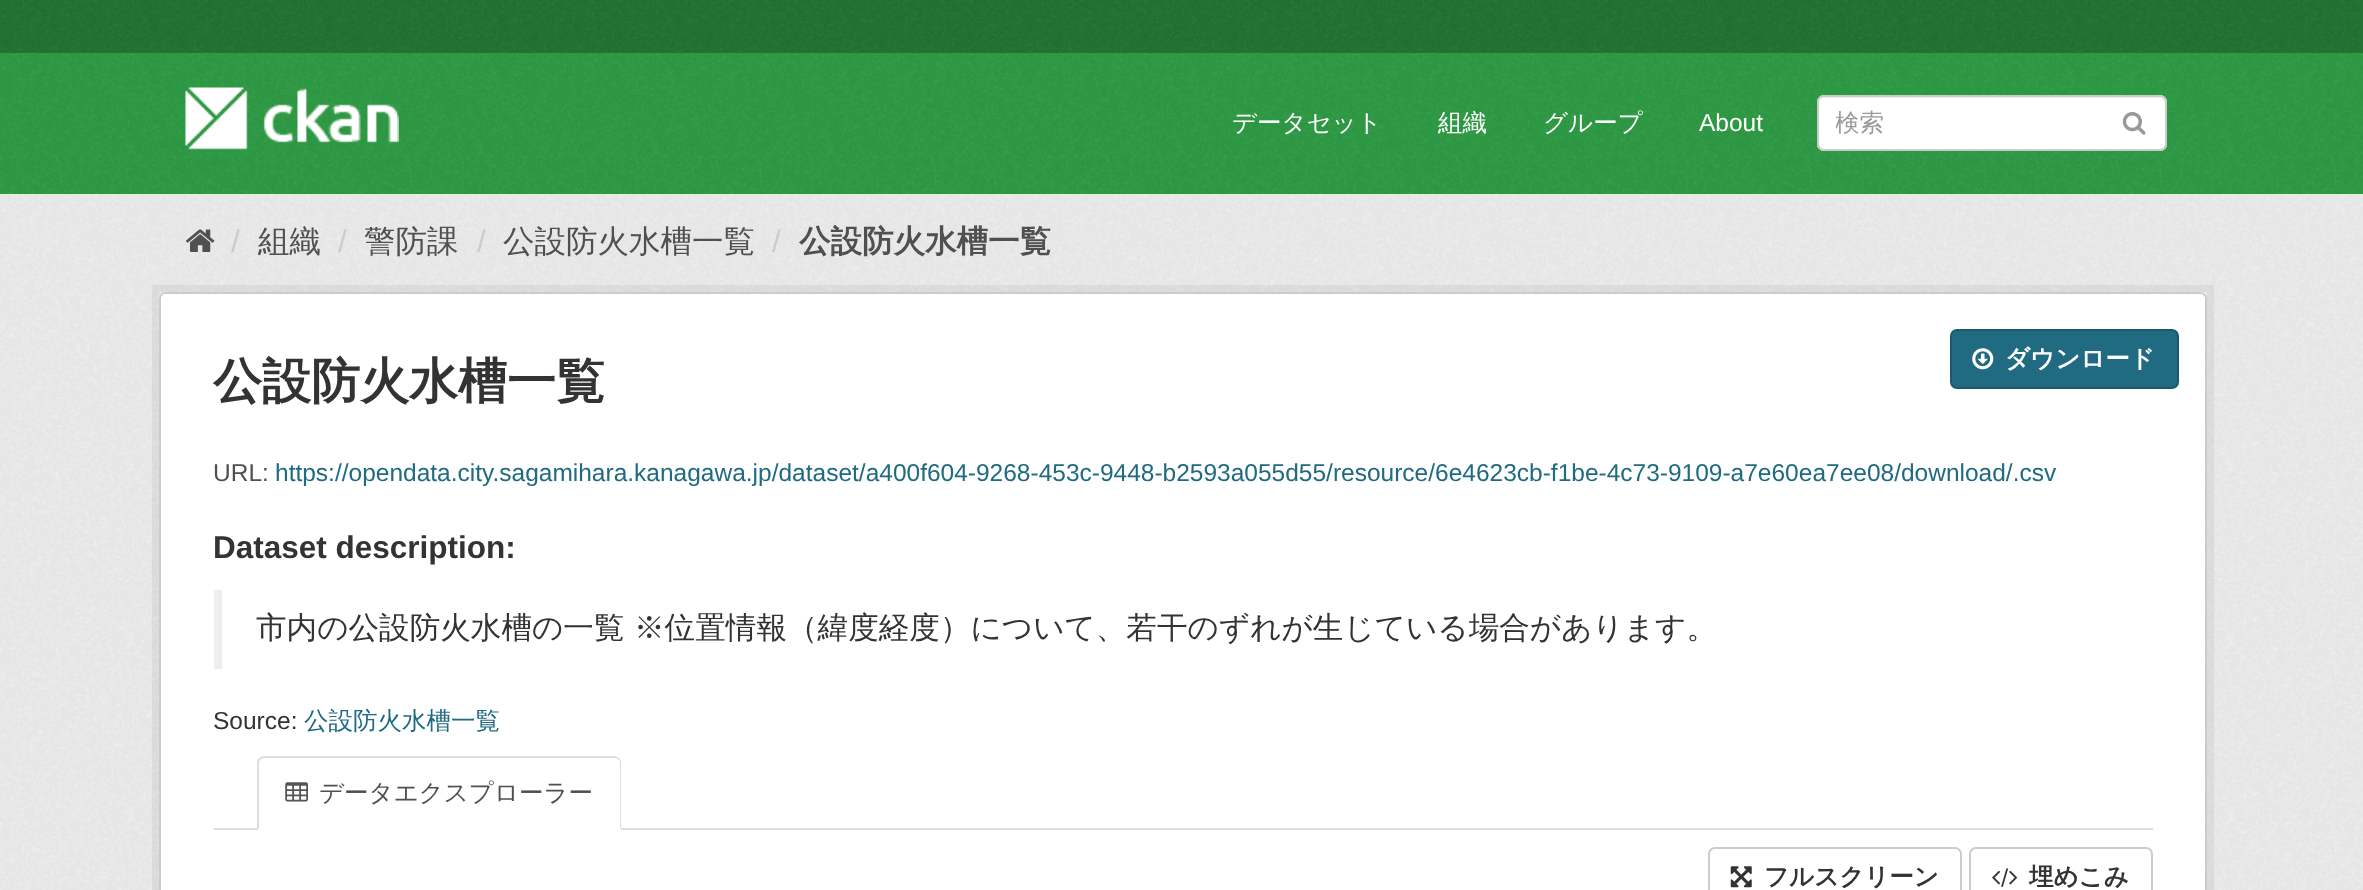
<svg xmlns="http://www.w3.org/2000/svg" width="2363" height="890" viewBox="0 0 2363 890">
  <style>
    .t1 { font: 500 24.5px WenQuanYi Zen Hei; fill: #fff; }
    .t2 { font: 24.5px Liberation Sans; fill: #fff; }
    .t3 { font: 500 24.5px WenQuanYi Zen Hei; fill: #999; }
    .t4 { font: 31.5px Liberation Sans; fill: #ccc; }
    .t5 { font: 500 31.5px WenQuanYi Zen Hei; fill: #505050; }
    .t6 { font: bold 31.5px WenQuanYi Zen Hei; fill: #505050; }
    .t7 { font: bold 49px WenQuanYi Zen Hei; fill: #333; }
    .t8 { font: bold 24.5px WenQuanYi Zen Hei; fill: #fff; }
    .t9 { font: 24.5px Liberation Sans; fill: #505050; }
    .t10 { font: 24.5px Liberation Sans; fill: #206b82; }
    .t11 { font: bold 31.5px Liberation Sans; fill: #333; }
    .t12 { font: 500 30.6px WenQuanYi Zen Hei; fill: #333; }
    .t13 { font: 24.5px Liberation Sans; fill: #333; }
    .t14 { font: 500 24.5px WenQuanYi Zen Hei; fill: #206b82; }
    .t15 { font: 500 24.5px WenQuanYi Zen Hei; fill: #505050; }
    .t16 { font: bold 24.5px WenQuanYi Zen Hei; fill: #333; }
  </style>
  <defs>
    <clipPath id="clip1"><rect x="1836" y="109" width="311" height="31"/></clipPath>
  </defs>
  <rect width="100%" height="100%" fill="#237434"/>
  <image x="0" y="0" width="2359" height="52" href="images/1.png"/>
  <rect x="0" y="53" width="2363" height="141" fill="#2f9b45"/>
  <image x="0" y="53" width="2363" height="141" href="images/2.png"/>
  <image x="185" y="87" width="214" height="63" href="images/3.png"/>
  <text x="1232" y="131" class="t1">データセット</text>
  <text x="1438" y="131" class="t1">組織</text>
  <text x="1543" y="131" class="t1">グループ</text>
  <text x="1699" y="131" class="t2">About</text>
  <rect x="1817" y="95" width="350" height="56" rx="7" fill="#fff"/>
  <path d="M1824 98H2160C2162 98 2165 100 2165 103C2165 100 2164 96 2160 96H1823C1819 96 1818 100 1818 103C1818 100 1821 98 1824 98Z" fill="#ececec"/>
  <rect x="1818" y="96" width="348" height="54" rx="6" fill="none" stroke="#ccc" stroke-width="2"/>
  <g clip-path="url(#clip1)">
    <text x="1835" y="131" class="t3">検索</text>
  </g>
  <image x="2122" y="112" width="24" height="23" href="images/4.png"/>
  <rect x="0" y="194" width="2363" height="696" fill="#eee"/>
  <image x="0" y="194" width="2363" height="696" href="images/5.png"/>
  <image x="186" y="229" width="29" height="23" href="images/6.png"/>
  <text x="231" y="252" class="t4">/</text>
  <text x="258" y="252" class="t5">組織</text>
  <text x="338" y="252" class="t4">/</text>
  <text x="364" y="252" class="t5">警防課</text>
  <text x="477" y="252" class="t4">/</text>
  <text x="503" y="252" class="t5">公設防火水槽一覧</text>
  <text x="772" y="252" class="t4">/</text>
  <text x="799" y="252" class="t6">公設防火水槽一覧</text>
  <rect x="155.5" y="288.5" width="2055" height="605" fill="none" stroke="#0000000d" stroke-width="7"/>
  <rect x="160" y="293" width="2046" height="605" rx="6" fill="none" stroke="#ccc" stroke-width="2"/>
  <path d="M166 294H2200C2203 294 2205 296 2205 299V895H161V299C161 296 163 294 166 294Z" fill="#fff"/>
  <text x="213" y="398" class="t7">公設防火水槽一覧</text>
  <rect x="1951" y="330" width="227" height="58" rx="6" fill="#206b82" stroke="#1b5a6e" stroke-width="2"/>
  <image x="1972" y="348" width="22" height="22" href="images/7.png"/>
  <text x="2005" y="367" class="t8">ダウンロード</text>
  <text x="213" y="481" class="t9">URL:</text>
  <text x="275" y="481" class="t10">https://opendata.city.sagamihara.kanagawa.jp/dataset/a400f604-9268-453c-9448-b2593a055d55/resource/6e4623cb-f1be-4c73-9109-a7e60ea7ee08/download/.csv</text>
  <text x="213" y="558" class="t11">Dataset description:</text>
  <rect x="214" y="590" width="8" height="79" fill="#eee"/>
  <text x="256" y="638" class="t12">市内の公設防火水槽の一覧</text>
  <text x="634" y="638" class="t12">※位置情報（緯度経度）について、若干のずれが生じている場合があります。</text>
  <text x="213" y="729" class="t13">Source:</text>
  <text x="304" y="729" class="t14">公設防火水槽一覧</text>
  <rect x="214" y="828" width="1939" height="2" fill="#ddd"/>
  <path d="M264 756H614C618 756 621 759 621 763V830H257V763C257 759 260 756 264 756Z" fill="#fff"/>
  <path d="M264 756C262 756 260 757 259 758L261 759C261 758 263 758 264 758H614C615 758 617 758 618 759L619 758C618 757 616 756 614 756Z" fill="#ddd"/>
  <path d="M619 758C620 759 621 761 621 763V829L620 828V762L618 759Z" fill="#ddd"/>
  <path d="M257 830V761L259 758L261 759L259 762V828Z" fill="#ddd"/>
  <image x="285" y="782" width="23" height="20" href="images/8.png"/>
  <text x="319" y="801" class="t15">データエクスプローラー</text>
  <rect x="1709" y="848" width="252" height="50" rx="6" fill="none" stroke="#ccc" stroke-width="2"/>
  <image x="1730" y="866" width="22" height="22" href="images/9.png"/>
  <text x="1764" y="885" class="t16">フルスクリーン</text>
  <rect x="1970" y="848" width="182" height="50" rx="6" fill="none" stroke="#ccc" stroke-width="2"/>
  <image x="1992" y="868" width="26" height="19" href="images/10.png"/>
  <text x="2029" y="885" class="t16">埋めこみ</text>
</svg>
